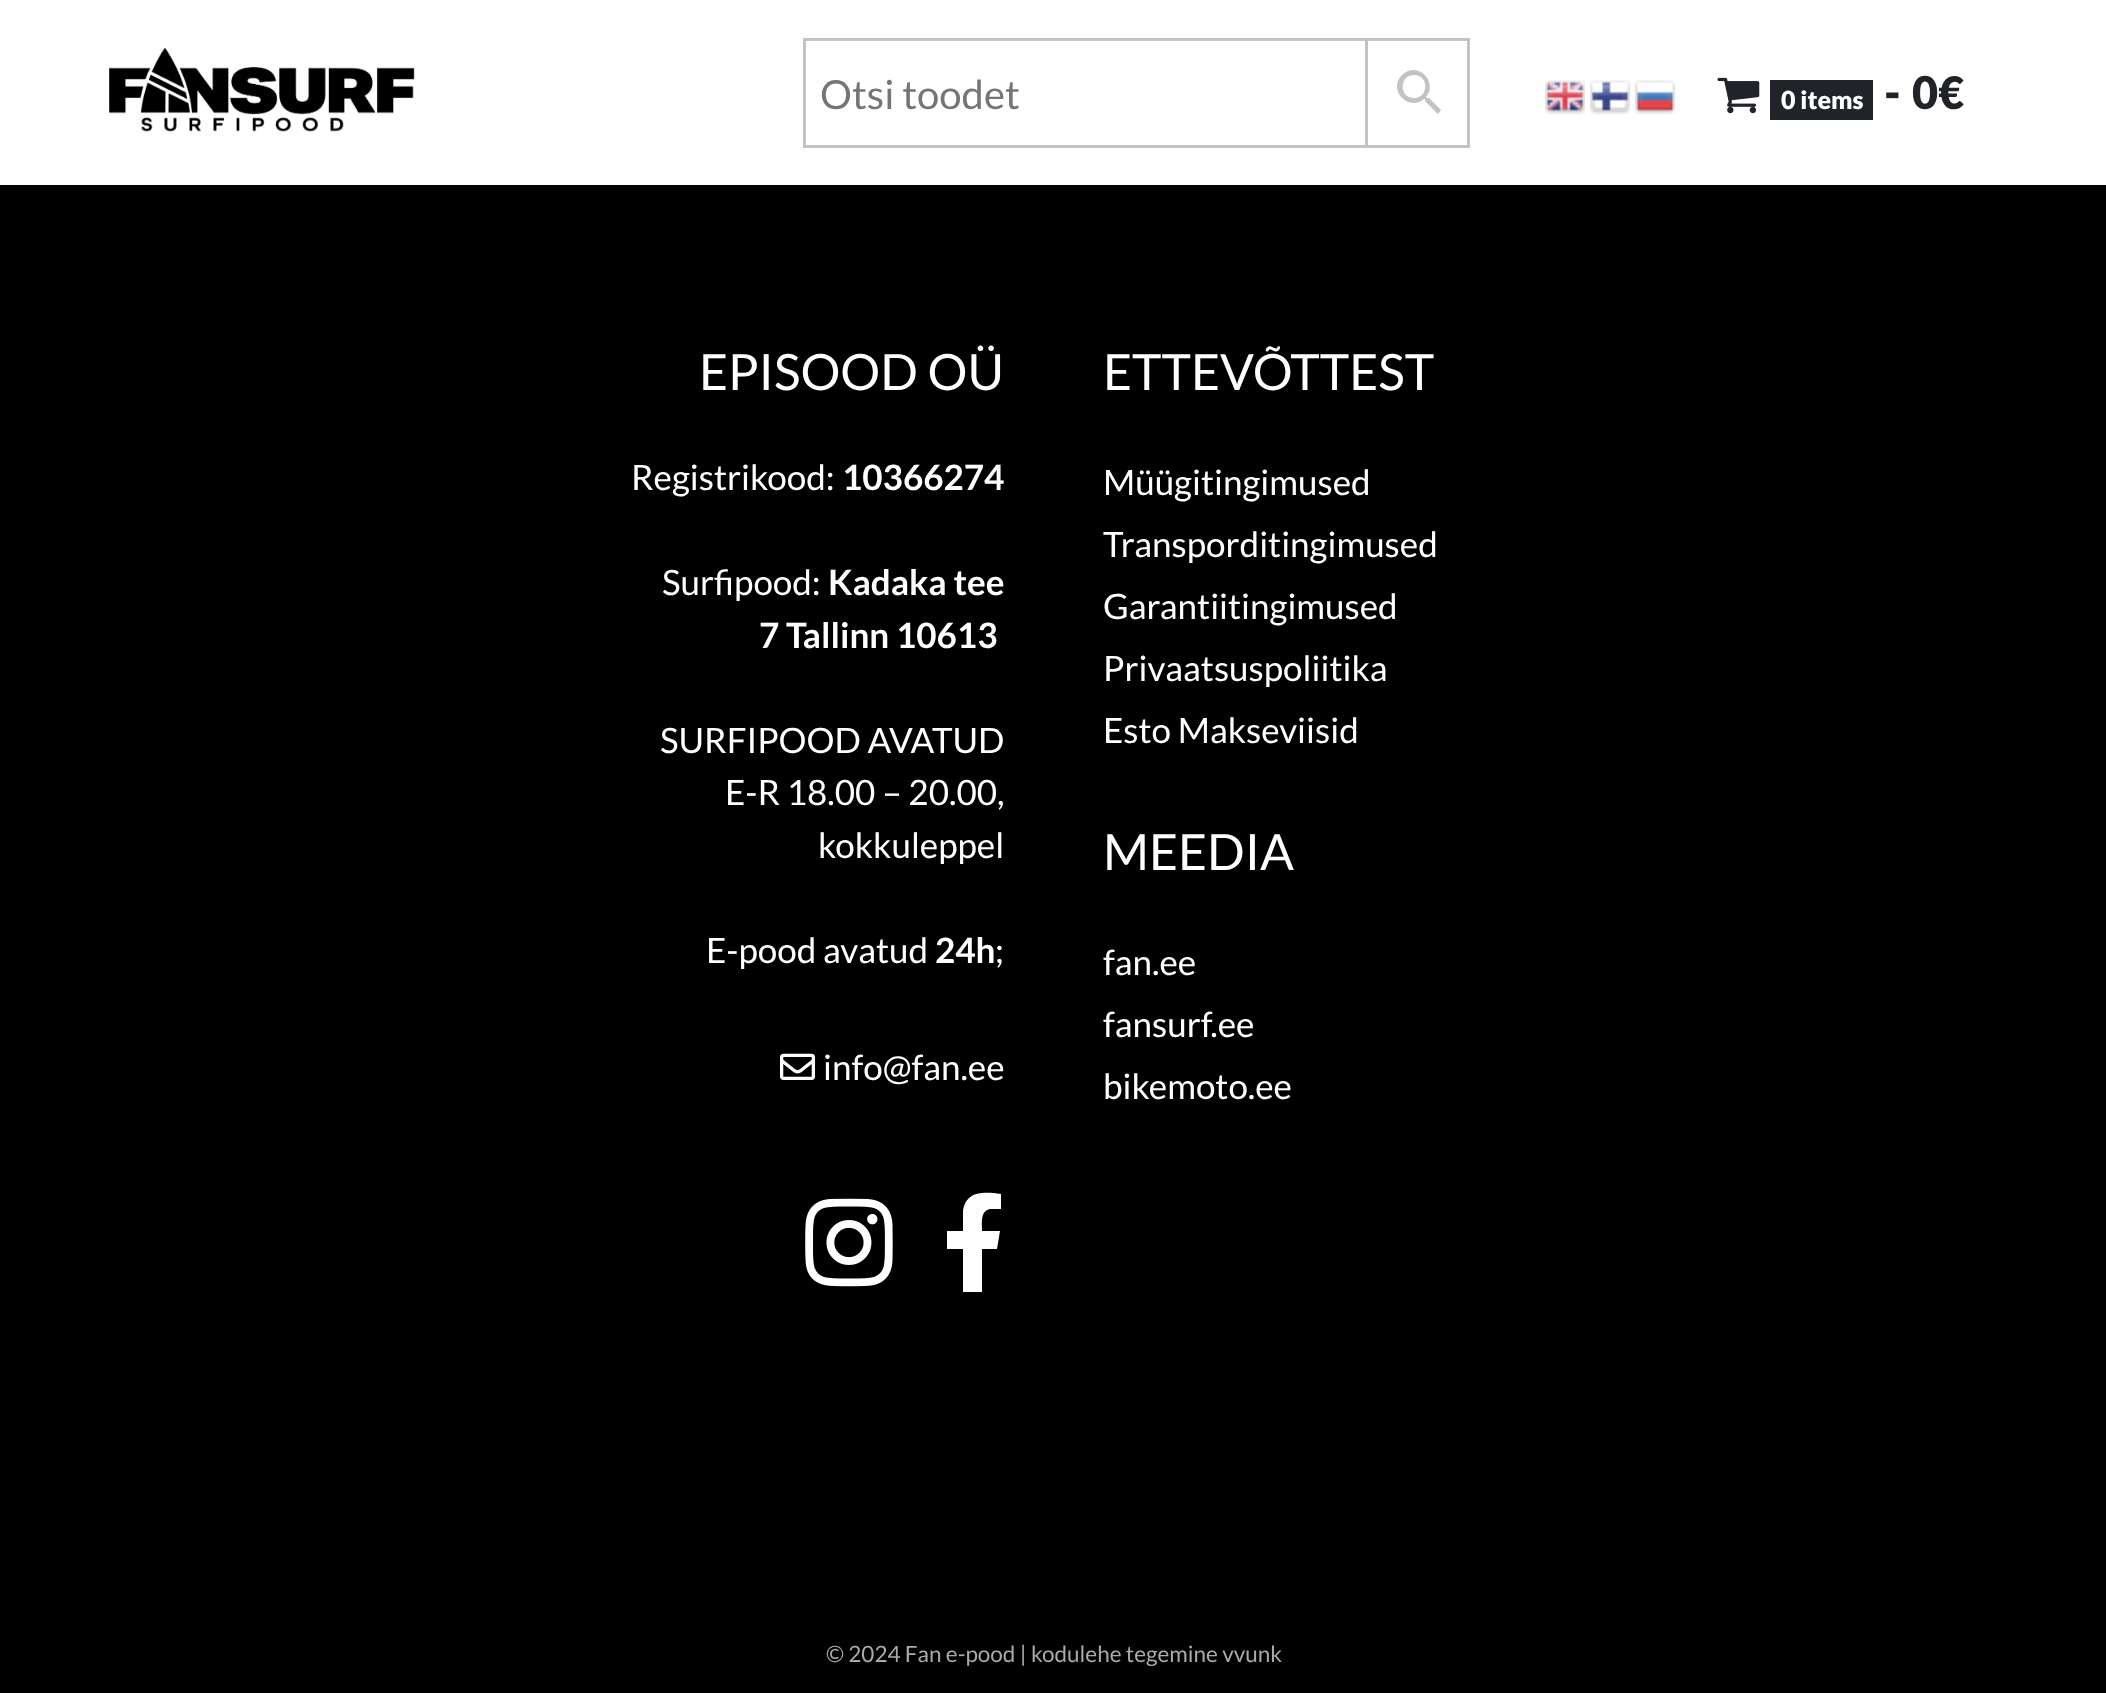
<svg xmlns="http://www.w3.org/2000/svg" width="2106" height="1693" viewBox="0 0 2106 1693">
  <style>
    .t1 { font: 40px Lato; fill: #757575; }
    .t2 { font: 900 25px Lato; fill: #fff; }
    .t3 { font: 900 45px Lato; fill: #202428; }
    .t4 { font: 50px Lato; fill: #fff; }
    .t5 { font: 35px Lato; fill: #fff; }
    .t6 { font: bold 35px Lato; fill: #fff; }
    .t7 { font: 22.5px Lato; fill: #aaa; }
  </style>
  <rect width="100%" height="100%" fill="#000"/>
  <rect x="0" y="0" width="2106" height="185" fill="#fff"/>
  <image x="109" y="48" width="306" height="84" href="images/1.png"/>
  <rect x="1366.5" y="39.5" width="102" height="107" fill="none" stroke="#c3c3c3" stroke-width="3"/>
  <rect x="804.5" y="39.5" width="562" height="107" fill="none" stroke="#c3c3c3" stroke-width="3"/>
  <text x="820" y="109" class="t1">Otsi toodet</text>
  <path d="M1429 98H1427L1426 97C1439 82 1417 60 1402 75C1387 90 1409 112 1424 99H1425V101L1438 114L1441 110ZM1414 98C1399 98 1399 75 1414 75C1429 75 1429 98 1414 98Z" fill="#c3c3c3"/>
  <image x="1545" y="80" width="40" height="35" href="images/2.png"/>
  <image x="1590" y="80" width="40" height="35" href="images/3.png"/>
  <image x="1635" y="80" width="40" height="35" href="images/4.png"/>
  <image x="1717" y="77" width="43" height="37" href="images/5.png"/>
  <rect x="1770" y="80" width="103" height="40" fill="#202428"/>
  <text x="1781" y="109" class="t2">0 items</text>
  <text x="1884" y="109" class="t3">-</text>
  <text x="1912" y="109" class="t3">0€</text>
  <text x="699" y="390" class="t4">EPISOOD OÜ</text>
  <text x="631" y="490" class="t5">Registrikood:</text>
  <text x="842" y="490" class="t6">10366274</text>
  <text x="662" y="595" class="t5">Surfipood:</text>
  <text x="828" y="595" class="t6">Kadaka tee</text>
  <text x="759" y="648" class="t6">7 Tallinn 10613</text>
  <text x="660" y="753" class="t5">SURFIPOOD AVATUD</text>
  <text x="725" y="805" class="t5">E-R 18.00 – 20.00,</text>
  <text x="818" y="858" class="t5">kokkuleppel</text>
  <text x="706" y="963" class="t5">E-pood avatud</text>
  <text x="935" y="963" class="t6">24h</text>
  <text x="995" y="963" class="t5">;</text>
  <image x="780" y="1053" width="35" height="27" href="images/6.png"/>
  <text x="823" y="1080" class="t5">info@fan.ee</text>
  <image x="805" y="1198" width="88" height="89" href="images/7.png"/>
  <path d="M997 1249H982V1292H963V1249H947V1231H963V1211C966 1190 985 1192 1001 1194V1209H990C980 1211 982 1223 982 1231H1000Z" fill="#fff"/>
  <text x="1103" y="390" class="t4">ETTEVÕTTEST</text>
  <text x="1103" y="495" class="t5">Müügitingimused</text>
  <text x="1103" y="557" class="t5">Transporditingimused</text>
  <text x="1103" y="619" class="t5">Garantiitingimused</text>
  <text x="1103" y="681" class="t5">Privaatsuspoliitika</text>
  <text x="1103" y="743" class="t5">Esto Makseviisid</text>
  <text x="1103" y="870" class="t4">MEEDIA</text>
  <text x="1103" y="975" class="t5">fan.ee</text>
  <text x="1103" y="1037" class="t5">fansurf.ee</text>
  <text x="1103" y="1099" class="t5">bikemoto.ee</text>
  <text x="826" y="1662" class="t7">© 2024 Fan e-pood | kodulehe tegemine vvunk</text>
</svg>
